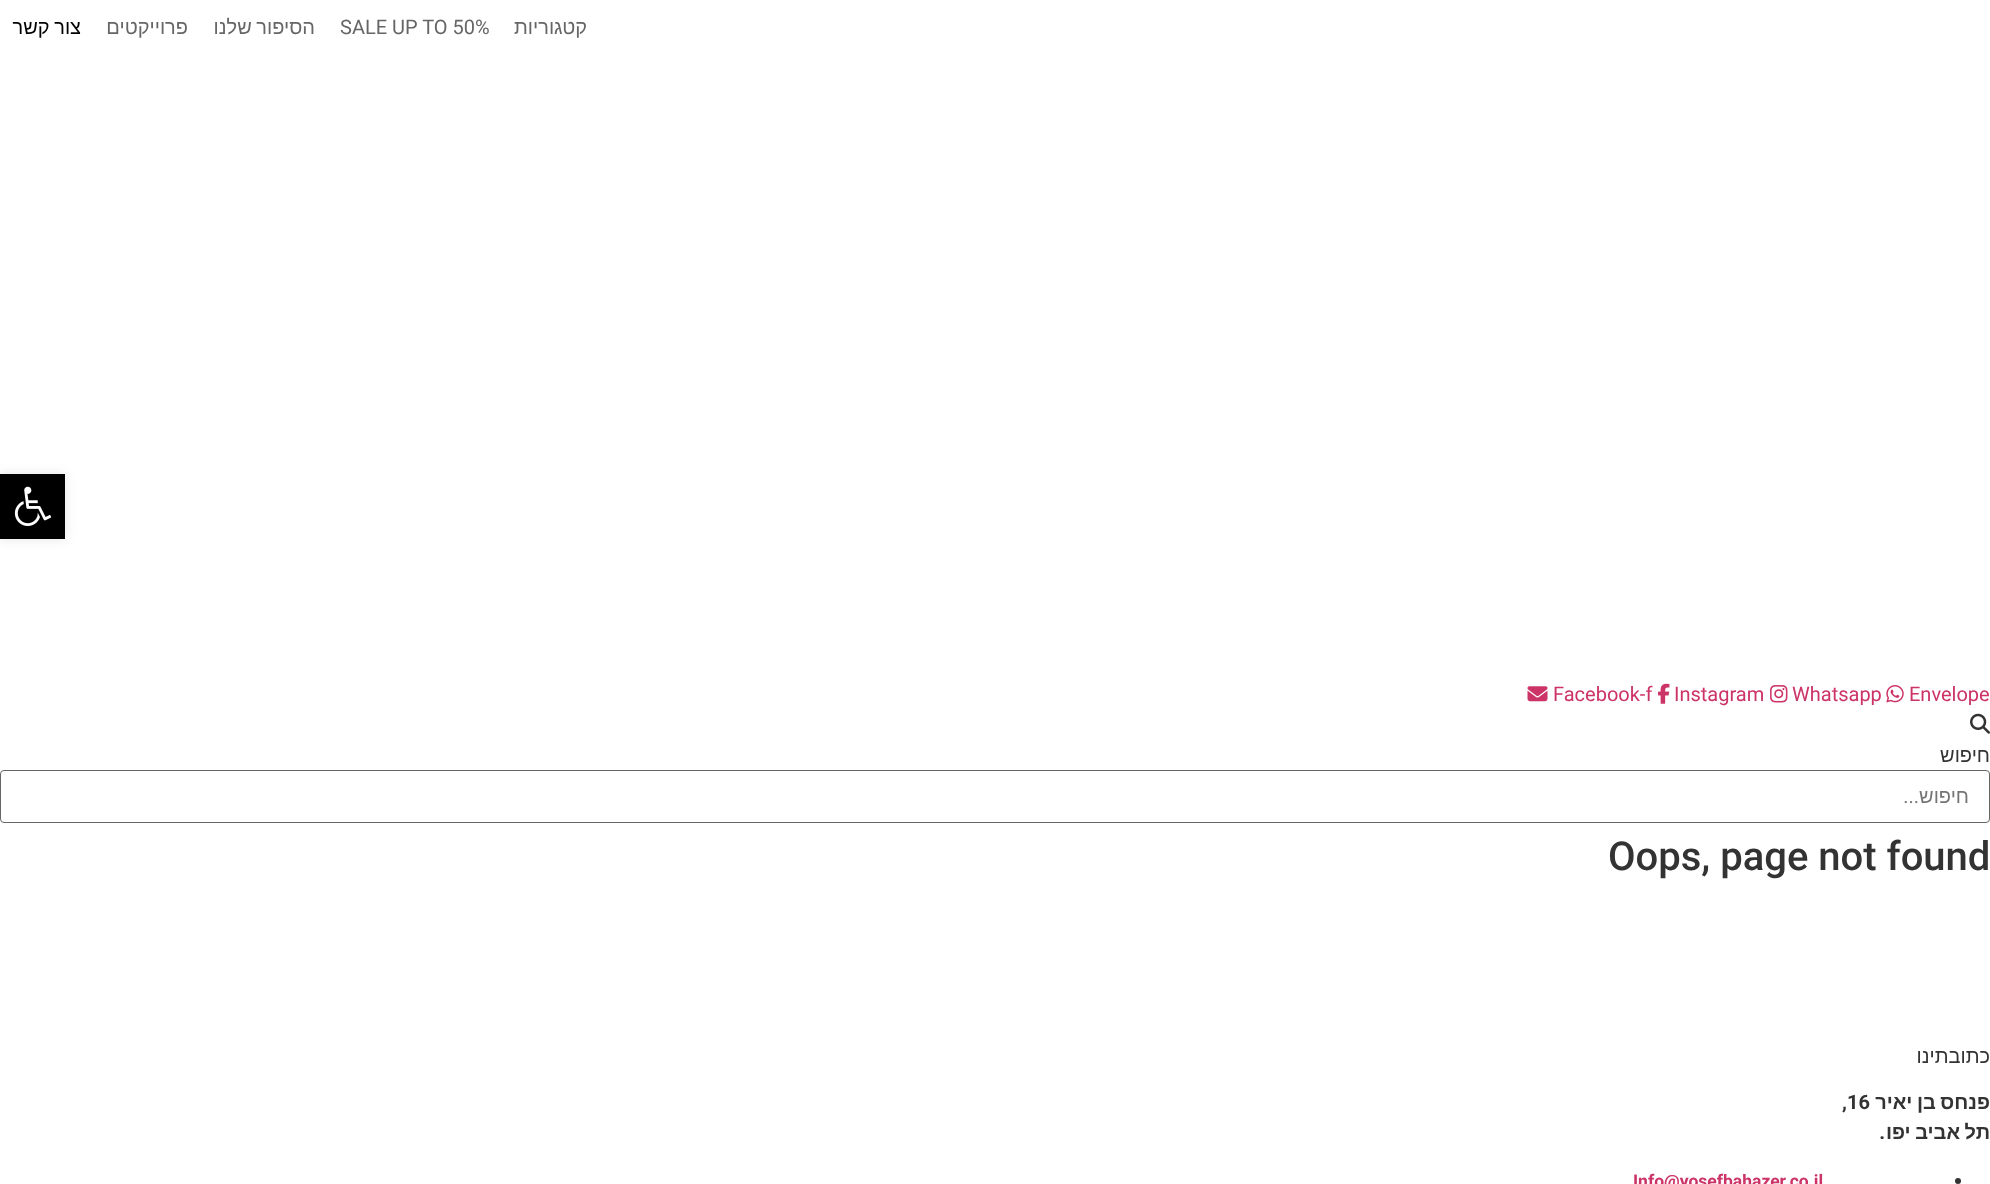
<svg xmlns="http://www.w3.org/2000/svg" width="1990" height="1184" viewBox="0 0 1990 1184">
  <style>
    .t1 { font: 20px Liberation Sans; direction: rtl; fill: #000; }
    .t2 { font: 20px Liberation Sans; direction: rtl; fill: #666; }
    .t3 { font: 20px Roboto; fill: #666; }
    .t4 { font: 20px Roboto; fill: #c36; }
    .t5 { font: 20px Liberation Sans; direction: rtl; fill: #333; }
    .t6 { font: 20px Roboto; direction: rtl; fill: #757575; }
    .t7 { font: 20px Liberation Sans; direction: rtl; fill: #757575; }
    .t8 { font: 500 40px Roboto; fill: #333; }
    .t9 { font: bold 20px Roboto; fill: #333; }
    .t10 { font: bold 20px Liberation Sans; direction: rtl; fill: #333; }
    .t11 { font: bold 20px Roboto; direction: rtl; fill: #333; }
    .t12 { font: bold 17.5px Roboto; fill: #c36; }
  </style>
  <rect width="100%" height="100%" fill="#fff"/>
  <text x="81" y="34" word-spacing="-1" class="t1">צור קשר</text>
  <text x="188" y="34" class="t2">פרוייקטים</text>
  <text x="315" y="34" word-spacing="-1" class="t2">הסיפור שלנו</text>
  <text x="340" y="34" class="t3">SALE UP TO 50%</text>
  <text x="587" y="34" class="t2">קטגוריות</text>
  <text x="1553" y="701" class="t4">Facebook-f</text>
  <image x="1658" y="683" width="12" height="21" href="images/1.png"/>
  <text x="1674" y="701" class="t4">Instagram</text>
  <image x="1770" y="685" width="18" height="18" href="images/2.png"/>
  <text x="1792" y="701" class="t4">Whatsapp</text>
  <image x="1886" y="685" width="18" height="18" href="images/3.png"/>
  <image x="1527" y="686" width="21" height="16" href="images/4.png"/>
  <text x="1909" y="701" class="t4">Envelope</text>
  <image x="1970" y="713" width="20" height="21" href="images/5.png"/>
  <text x="1990" y="762" class="t5">חיפוש</text>
  <rect x="0.5" y="770.5" width="1989" height="52" rx="3.5" fill="none" stroke="#666"/>
  <text x="1919" y="803" class="t6">...</text>
  <text x="1969" y="803" class="t7">חיפוש</text>
  <rect x="0" y="474" width="65" height="65" fill="#0000001a" filter="blur(6px)"/>
  <rect x="0" y="474" width="65" height="65" fill="#000"/>
  <image x="14" y="486" width="38" height="40" href="images/6.png"/>
  <text x="1608" y="870" class="t8">Oops, page not found</text>
  <text x="1990" y="1063" class="t5">כתובתינו</text>
  <text x="1842" y="1109" class="t9">,16</text>
  <text x="1990" y="1109" word-spacing="-1" class="t10">פנחס בן יאיר</text>
  <text x="1885" y="1139" class="t11">.</text>
  <text x="1990" y="1139" word-spacing="-1" class="t10">תל אביב יפו</text>
  <text x="1633" y="1187" class="t12">Info@yosefbahazer.co.il</text>
  <circle cx="1958" cy="1181" r="3" fill="#333"/>
</svg>
